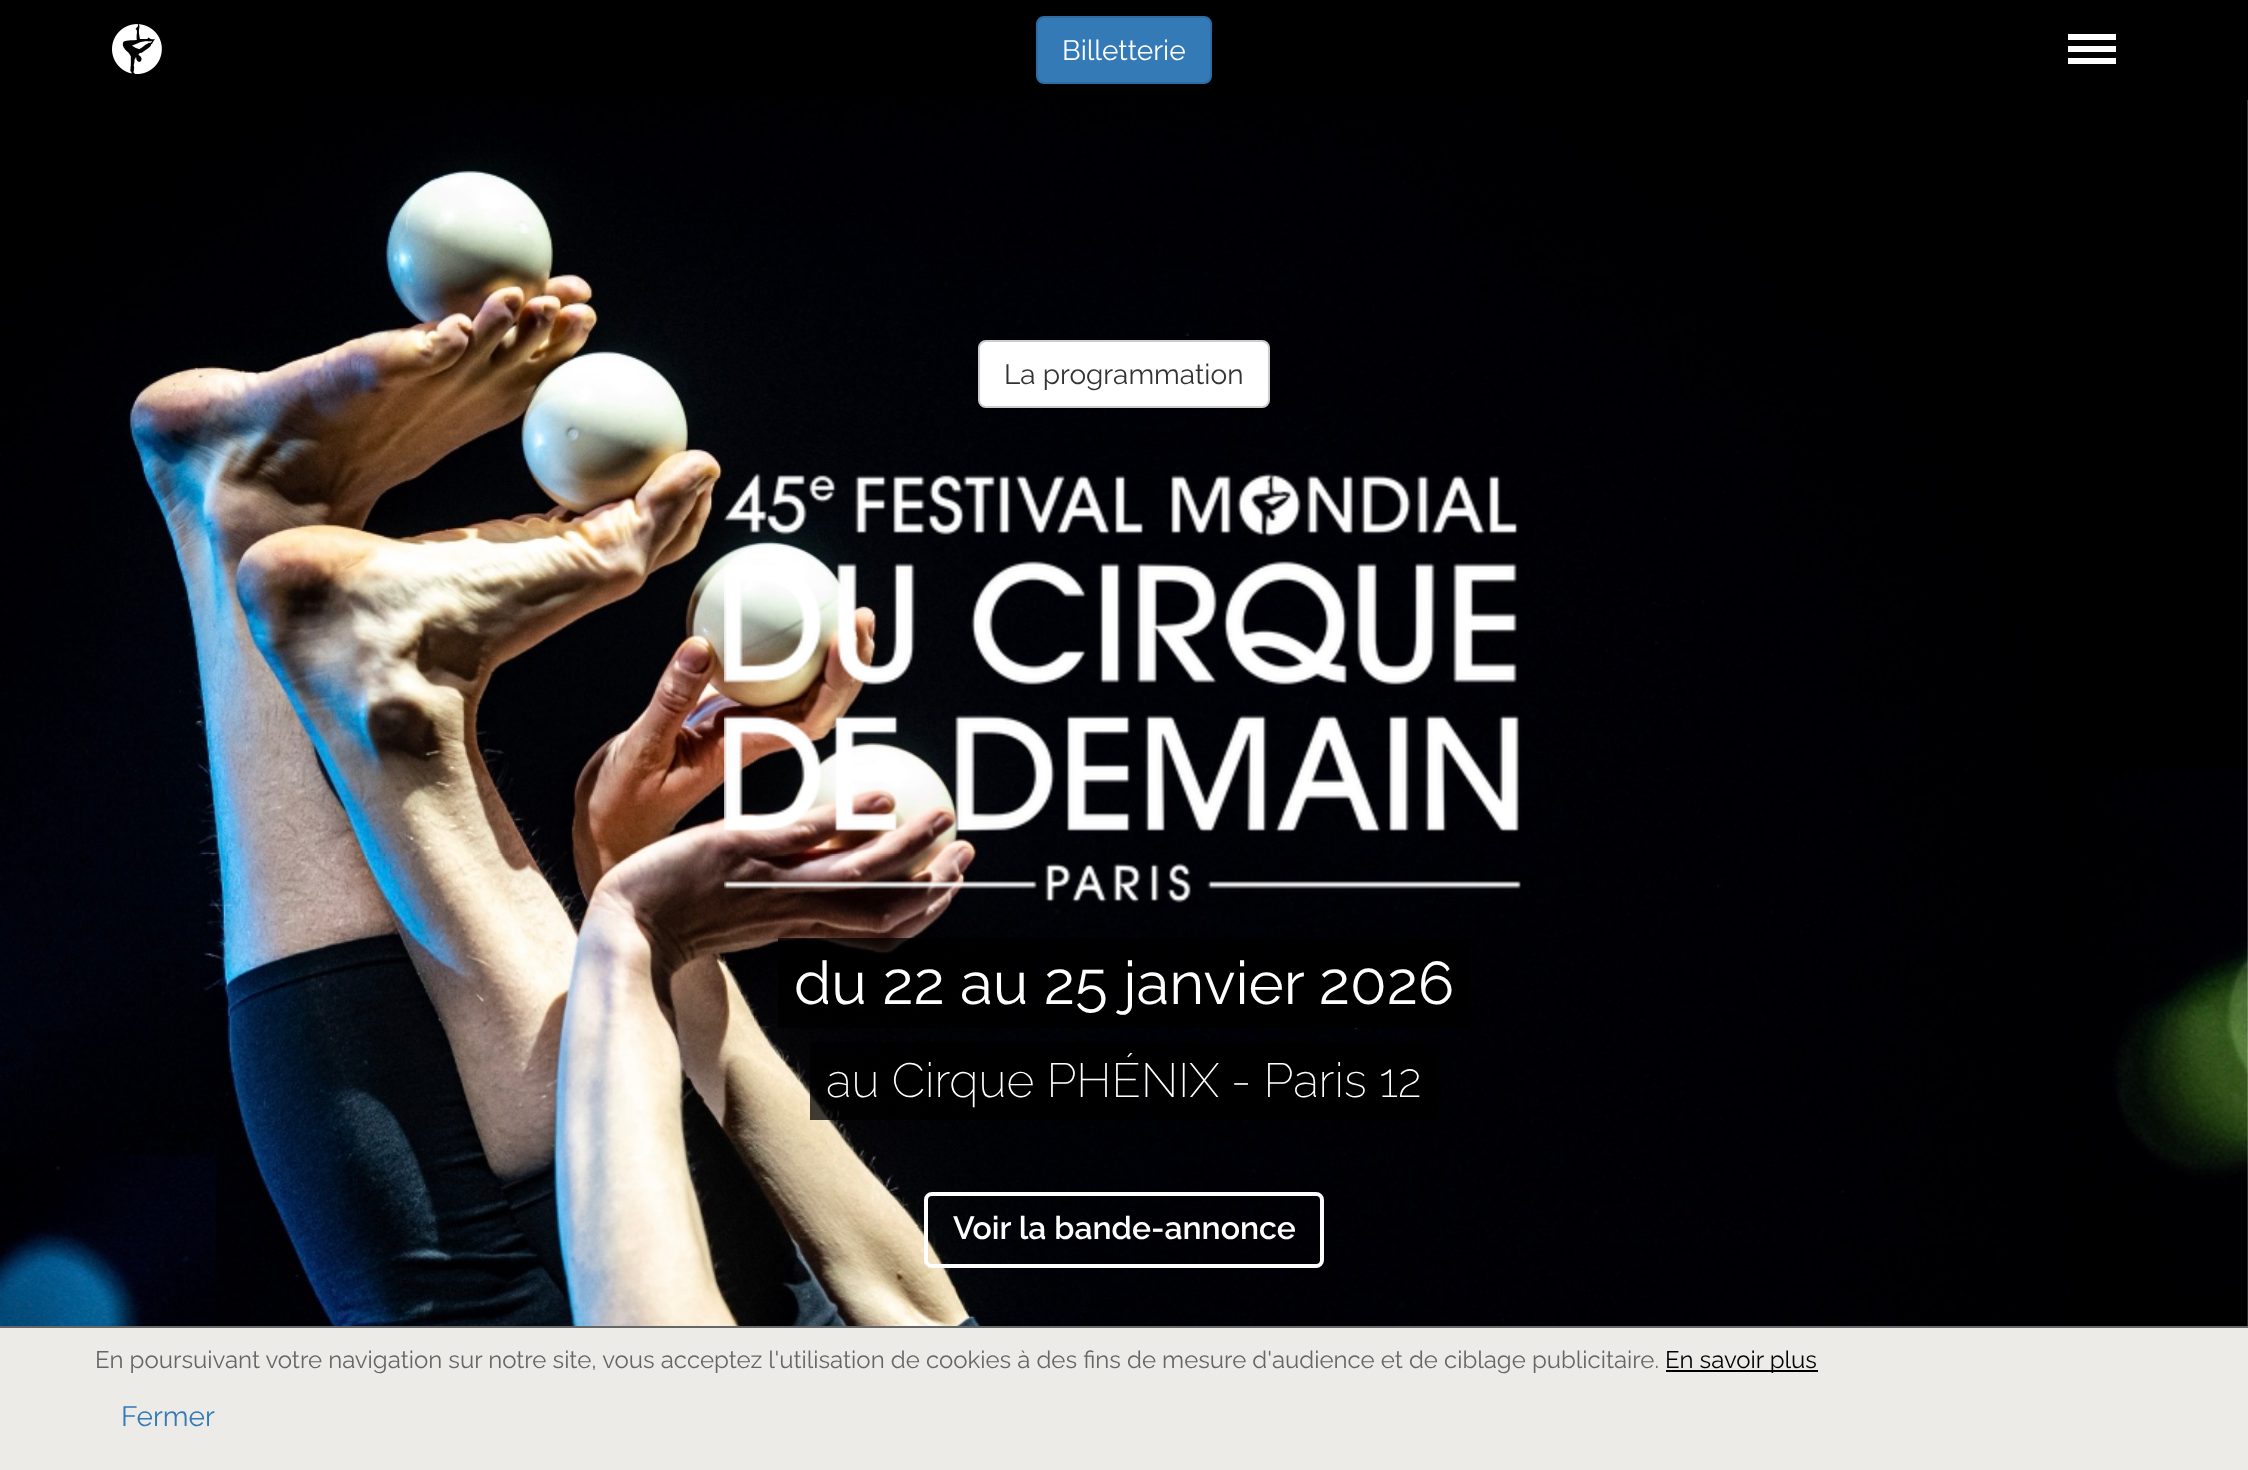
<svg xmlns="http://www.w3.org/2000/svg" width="2248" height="1470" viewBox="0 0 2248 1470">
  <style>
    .t1 { font: 28px Raleway; fill: #fff; }
    .t2 { font: 28px Raleway; fill: #333; }
    .t3 { font: 60px Raleway; fill: #fff; }
    .t4 { font: 200 48px Raleway; fill: #fff; }
    .t5 { font: 600 32px Raleway; fill: #fff; }
    .t6 { font: 24px Raleway; fill: #666; }
    .t7 { font: 24px Raleway; fill: #000; }
    .t8 { font: 28px Raleway; fill: #337ab7; }
  </style>
  <rect width="100%" height="100%" fill="#fff"/>
  <rect x="0" y="0" width="2248" height="100" fill="#000"/>
  <image x="112" y="24" width="50" height="50" href="images/1.png"/>
  <rect x="1037" y="17" width="174" height="66" rx="7" fill="#337ab7" stroke="#2e6da4" stroke-width="2"/>
  <text x="1062" y="60" class="t1">Billetterie</text>
  <rect x="2068" y="46" width="48" height="6" fill="#fff"/>
  <rect x="2068" y="34" width="48" height="6" fill="#fff"/>
  <rect x="2068" y="58" width="48" height="6" fill="#fff"/>
  <image x="0" y="100" width="2248" height="1226" href="images/2.png"/>
  <rect x="979" y="341" width="290" height="66" rx="7" fill="#fff" stroke="#ccc" stroke-width="2"/>
  <text x="1004" y="384" class="t2">La programmation</text>
  <image x="724" y="473" width="797" height="430" href="images/3.png"/>
  <rect x="778" y="938" width="692" height="90" fill="#000000bf"/>
  <text x="794" y="1004" class="t3">du 22 au 25 janvier 2026</text>
  <rect x="810" y="1042" width="628" height="78" fill="#000000bf"/>
  <text x="826" y="1097" class="t4">au Cirque PHÉNIX - Paris 12</text>
  <rect x="926" y="1194" width="396" height="72" rx="6" fill="none" stroke="#fff" stroke-width="4"/>
  <text x="953" y="1239" class="t5">Voir la bande-annonce</text>
  <rect x="0" y="1328" width="2248" height="142" fill="#ecebe8"/>
  <rect x="0" y="1326" width="2248" height="2" fill="#666"/>
  <text x="95" y="1368" class="t6">En poursuivant votre navigation sur notre site, vous acceptez l'utilisation de cookies à des fins de mesure d'audience et de ciblage publicitaire.</text>
  <rect x="1666" y="1370" width="152" height="2" fill="#000"/>
  <text x="1665" y="1368" class="t7">En savoir plus</text>
  <text x="121" y="1426" class="t8">Fermer</text>
</svg>
